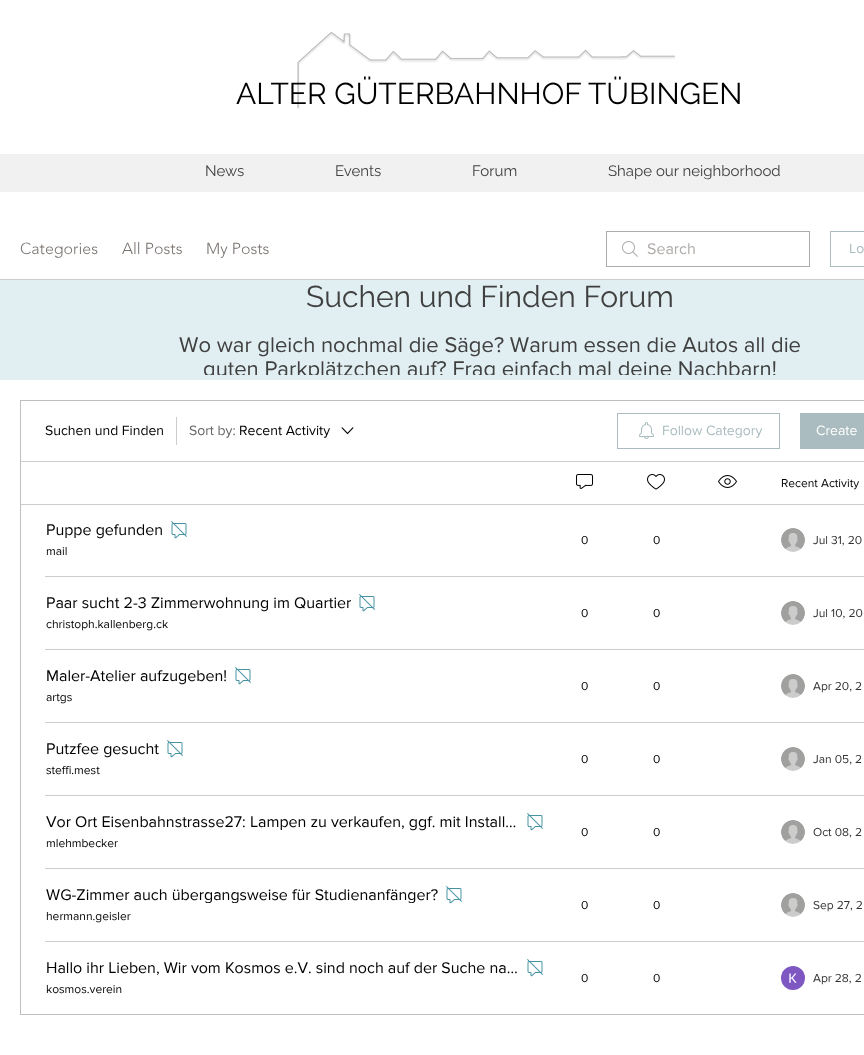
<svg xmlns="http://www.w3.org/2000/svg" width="864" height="1055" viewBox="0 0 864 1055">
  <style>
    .t1 { font: 30px Raleway; fill: #000; }
    .t2 { font: 15px Raleway; fill: #404040; }
    .t3 { font: 300 16px 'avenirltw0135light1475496'; fill: #7a736f; }
    .t4 { font: 16px 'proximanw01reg'; fill: #afaba9; }
    .t5 { font: 14px 'proximanw01reg'; fill: #aabcbf; }
    .t6 { font: 30px Raleway; fill: #404040; }
    .t7 { font: 22px 'proximanw01reg'; fill: #404040; }
    .t8 { font: 14px 'proximanw01reg'; fill: #000; }
    .t9 { font: 14px 'proximanw01reg'; fill: #666; }
    .t10 { font: 14px 'proximanw01reg'; fill: #fff; }
    .t11 { font: 12px 'proximanw01reg'; fill: #000; }
    .t12 { font: 16px 'proximanw01reg'; fill: #000; }
    .t13 { font: 12px 'proximanw01reg'; fill: #333; }
  </style>
  <defs>
    <clipPath id="clip1"><rect x="150" y="332" width="680" height="43"/></clipPath>
    <clipPath id="clip2"><rect x="46" y="887" width="392" height="16"/></clipPath>
  </defs>
  <rect width="100%" height="100%" fill="#fff"/>
  <image x="297" y="32" width="379" height="77" href="images/1.png"/>
  <text x="236" y="104" class="t1">ALTER GÜTERBAHNHOF TÜBINGEN</text>
  <rect x="0" y="154" width="864" height="38" fill="#f1f1f1"/>
  <text x="205" y="176" class="t2">News</text>
  <text x="335" y="176" class="t2">Events</text>
  <text x="472" y="176" class="t2">Forum</text>
  <text x="608" y="176" class="t2">Shape our neighborhood</text>
  <rect x="0" y="279" width="864" height="1" fill="#ccc"/>
  <text x="20" y="254" class="t3">Categories</text>
  <text x="122" y="254" class="t3">All Posts</text>
  <text x="206" y="254" class="t3">My Posts</text>
  <image x="622" y="241" width="16" height="16" href="images/2.png"/>
  <rect x="606.5" y="231.5" width="203" height="35" fill="none" stroke="#afaba9"/>
  <text x="647" y="254" class="t4">Search</text>
  <rect x="830.5" y="231.5" width="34" height="35" fill="none" stroke="#aabcbf"/>
  <text x="849" y="253" class="t5">Lo</text>
  <rect x="0" y="280" width="864" height="100" fill="#e1eff2"/>
  <text x="306" y="307" class="t6">Suchen und Finden Forum</text>
  <text x="179" y="352" class="t7">Wo war gleich nochmal die Säge? Warum essen die Autos all die</text>
  <g clip-path="url(#clip1)">
    <text x="203" y="376" class="t7">guten Parkplätzchen auf? Frag einfach mal deine Nachbarn!</text>
  </g>
  <rect x="20.5" y="400.5" width="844" height="614" fill="none" stroke="#bfbfbf"/>
  <text x="45" y="435" class="t8">Suchen und Finden</text>
  <rect x="176" y="417" width="1" height="28" fill="#ccc"/>
  <text x="189" y="435" class="t9">Sort by:</text>
  <text x="239" y="435" class="t8">Recent Activity</text>
  <image x="341" y="427" width="13" height="8" href="images/3.png"/>
  <rect x="617.5" y="413.5" width="162" height="35" fill="none" stroke="#aabcbf"/>
  <image x="639" y="422" width="15" height="17" href="images/4.png"/>
  <text x="662" y="435" class="t5">Follow Category</text>
  <rect x="800" y="413" width="64" height="36" fill="#aabcbf"/>
  <text x="816" y="435" class="t10">Create</text>
  <rect x="21" y="461" width="843" height="1" fill="#ccc"/>
  <image x="576" y="474" width="17" height="15" href="images/5.png"/>
  <image x="647" y="474" width="18" height="16" href="images/6.png"/>
  <image x="718" y="475" width="19" height="13" href="images/7.png"/>
  <text x="781" y="487" class="t11">Recent Activity</text>
  <rect x="21" y="504" width="843" height="1" fill="#ccc"/>
  <text x="46" y="535" class="t12">Puppe gefunden</text>
  <image x="171" y="521" width="16" height="18" href="images/8.png"/>
  <text x="46" y="555" class="t11">mail</text>
  <text x="581" y="544" class="t11">0</text>
  <text x="653" y="544" class="t11">0</text>
  <image x="781" y="528" width="24" height="24" href="images/9.png"/>
  <text x="813" y="544" class="t13">Jul 31, 20</text>
  <rect x="45" y="576" width="819" height="1" fill="#ccc"/>
  <text x="46" y="608" class="t12">Paar sucht 2-3 Zimmerwohnung im Quartier</text>
  <image x="359" y="594" width="16" height="18" href="images/8.png"/>
  <text x="46" y="628" class="t11">christoph.kallenberg.ck</text>
  <text x="581" y="617" class="t11">0</text>
  <text x="653" y="617" class="t11">0</text>
  <image x="781" y="601" width="24" height="24" href="images/9.png"/>
  <text x="813" y="617" class="t13">Jul 10, 20</text>
  <rect x="45" y="649" width="819" height="1" fill="#ccc"/>
  <text x="46" y="681" class="t12">Maler-Atelier aufzugeben!</text>
  <image x="235" y="667" width="16" height="18" href="images/8.png"/>
  <text x="46" y="701" class="t11">artgs</text>
  <text x="581" y="690" class="t11">0</text>
  <text x="653" y="690" class="t11">0</text>
  <image x="781" y="674" width="24" height="24" href="images/9.png"/>
  <text x="813" y="690" class="t13">Apr 20, 2</text>
  <rect x="45" y="722" width="819" height="1" fill="#ccc"/>
  <text x="46" y="754" class="t12">Putzfee gesucht</text>
  <image x="167" y="740" width="16" height="18" href="images/8.png"/>
  <text x="46" y="774" class="t11">steffi.mest</text>
  <text x="581" y="763" class="t11">0</text>
  <text x="653" y="763" class="t11">0</text>
  <image x="781" y="747" width="24" height="24" href="images/9.png"/>
  <text x="813" y="763" class="t13">Jan 05, 2</text>
  <rect x="45" y="795" width="819" height="1" fill="#ccc"/>
  <text x="46" y="827" class="t12">Vor Ort Eisenbahnstrasse27: Lampen zu verkaufen, ggf. mit Install…</text>
  <image x="527" y="813" width="16" height="18" href="images/8.png"/>
  <text x="46" y="847" class="t11">mlehmbecker</text>
  <text x="581" y="836" class="t11">0</text>
  <text x="653" y="836" class="t11">0</text>
  <image x="781" y="820" width="24" height="24" href="images/9.png"/>
  <text x="813" y="836" class="t13">Oct 08, 2</text>
  <rect x="45" y="868" width="819" height="1" fill="#ccc"/>
  <g clip-path="url(#clip2)">
    <text x="46" y="900" class="t12">WG-Zimmer auch übergangsweise für Studienanfänger?</text>
  </g>
  <image x="446" y="886" width="16" height="18" href="images/8.png"/>
  <text x="46" y="920" class="t11">hermann.geisler</text>
  <text x="581" y="909" class="t11">0</text>
  <text x="653" y="909" class="t11">0</text>
  <image x="781" y="893" width="24" height="24" href="images/9.png"/>
  <text x="813" y="909" class="t13">Sep 27, 2</text>
  <rect x="45" y="941" width="819" height="1" fill="#ccc"/>
  <text x="46" y="973" class="t12">Hallo ihr Lieben, Wir vom Kosmos e.V. sind noch auf der Suche na…</text>
  <image x="527" y="959" width="16" height="18" href="images/8.png"/>
  <text x="46" y="993" class="t11">kosmos.verein</text>
  <text x="581" y="982" class="t11">0</text>
  <text x="653" y="982" class="t11">0</text>
  <image x="781" y="966" width="24" height="24" href="images/10.png"/>
  <text x="813" y="982" class="t13">Apr 28, 2</text>
</svg>
